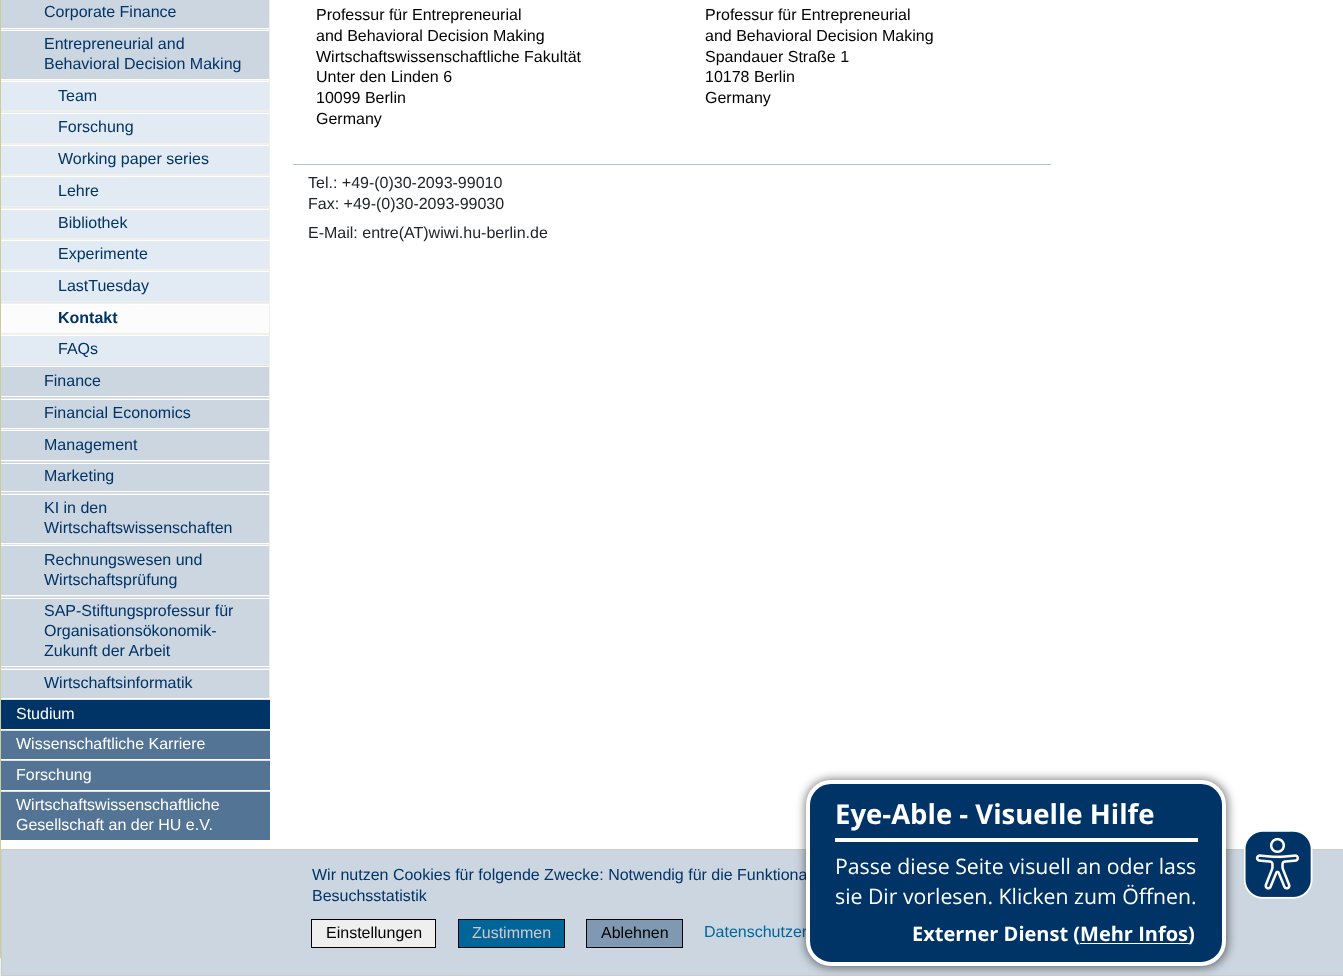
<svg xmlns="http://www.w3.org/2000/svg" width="1343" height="976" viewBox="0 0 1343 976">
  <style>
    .t1 { font: 16px Liberation Sans; fill: #036; }
    .t2 { font: bold 16px Liberation Sans; fill: #036; }
    .t3 { font: 16px Liberation Sans; fill: #fff; }
    .t4 { font: 16px Liberation Sans; fill: #000; }
    .t5 { font: 16px Liberation Sans; fill: #212529; }
    .t6 { font: 16px Liberation Sans; fill: #d5c7c7; }
    .t7 { font: 16px Liberation Sans; fill: #069; }
    .t8 { font: bold 27.5px Open Sans; fill: #fff; }
    .t9 { font: 21.25px Open Sans; fill: #fff; }
    .t10 { font: bold 20px Open Sans; fill: #fff; }
  </style>
  <rect width="100%" height="100%" fill="#f0f0e8"/>
  <rect x="1" y="0" width="1342" height="849" fill="#fff"/>
  <rect x="0" y="0" width="1" height="958" fill="#cc9"/>
  <rect x="1" y="0" width="268" height="28" fill="#ccd6e0"/>
  <rect x="269" y="0" width="1" height="29" fill="#f0f0e8"/>
  <text x="44" y="17" class="t1">Corporate Finance</text>
  <rect x="1" y="31" width="268" height="48" fill="#ccd6e0"/>
  <rect x="1" y="29" width="269" height="1" fill="#dee2e6"/>
  <rect x="269" y="29" width="1" height="336" fill="#f0f0e8"/>
  <text x="44" y="49" class="t1">Entrepreneurial and</text>
  <text x="44" y="69" class="t1">Behavioral Decision Making</text>
  <rect x="1" y="82" width="268" height="28" fill="#e2ebf3"/>
  <rect x="1" y="80" width="268" height="1" fill="#f0f0e8"/>
  <rect x="1" y="110" width="268" height="2" fill="#f0f0e8"/>
  <text x="58" y="101" class="t1">Team</text>
  <rect x="1" y="112" width="268" height="31" fill="#e2ebf3"/>
  <rect x="1" y="113" width="268" height="1" fill="#fff"/>
  <rect x="1" y="143" width="268" height="2" fill="#f0f0e8"/>
  <text x="58" y="132" class="t1">Forschung</text>
  <rect x="1" y="146" width="268" height="28" fill="#e2ebf3"/>
  <rect x="1" y="174" width="268" height="2" fill="#f0f0e8"/>
  <text x="58" y="164" class="t1">Working paper series</text>
  <rect x="1" y="177" width="268" height="31" fill="#e2ebf3"/>
  <rect x="1" y="206" width="268" height="1" fill="#f0f0e8"/>
  <text x="58" y="196" class="t1">Lehre</text>
  <rect x="1" y="210" width="268" height="28" fill="#e2ebf3"/>
  <rect x="1" y="208" width="268" height="1" fill="#f0f0e8"/>
  <rect x="1" y="238" width="268" height="2" fill="#f0f0e8"/>
  <text x="58" y="228" class="t1">Bibliothek</text>
  <rect x="1" y="241" width="268" height="28" fill="#e2ebf3"/>
  <rect x="1" y="269" width="268" height="2" fill="#f0f0e8"/>
  <text x="58" y="259" class="t1">Experimente</text>
  <rect x="1" y="272" width="268" height="31" fill="#e2ebf3"/>
  <rect x="1" y="301" width="268" height="1" fill="#f0f0e8"/>
  <text x="58" y="291" class="t1">LastTuesday</text>
  <rect x="1" y="303" width="268" height="1" fill="#f0f0e8"/>
  <rect x="1" y="305" width="268" height="28" fill="#fcfcfd"/>
  <rect x="1" y="333" width="268" height="2" fill="#f0f0e8"/>
  <text x="58" y="323" class="t2">Kontakt</text>
  <rect x="1" y="336" width="268" height="28" fill="#e2ebf3"/>
  <rect x="1" y="364" width="268" height="1" fill="#f0f0e8"/>
  <text x="58" y="354" class="t1">FAQs</text>
  <rect x="1" y="367" width="268" height="31" fill="#ccd6e0"/>
  <rect x="1" y="365" width="269" height="1" fill="#dee2e6"/>
  <rect x="269" y="365" width="1" height="33" fill="#f0f0e8"/>
  <rect x="1" y="396" width="268" height="1" fill="#fff"/>
  <text x="44" y="386" class="t1">Finance</text>
  <rect x="1" y="400" width="268" height="28" fill="#ccd6e0"/>
  <rect x="1" y="398" width="269" height="1" fill="#dee2e6"/>
  <rect x="269" y="398" width="1" height="31" fill="#f0f0e8"/>
  <text x="44" y="418" class="t1">Financial Economics</text>
  <rect x="1" y="431" width="268" height="29" fill="#ccd6e0"/>
  <rect x="1" y="429" width="269" height="1" fill="#dee2e6"/>
  <rect x="269" y="429" width="1" height="32" fill="#f0f0e8"/>
  <text x="44" y="450" class="t1">Management</text>
  <rect x="1" y="462" width="268" height="31" fill="#ccd6e0"/>
  <rect x="1" y="461" width="269" height="1" fill="#dee2e6"/>
  <rect x="269" y="461" width="1" height="32" fill="#f0f0e8"/>
  <rect x="1" y="463" width="268" height="1" fill="#fff"/>
  <rect x="1" y="491" width="268" height="1" fill="#fff"/>
  <text x="44" y="481" class="t1">Marketing</text>
  <rect x="1" y="495" width="268" height="48" fill="#ccd6e0"/>
  <rect x="1" y="493" width="269" height="1" fill="#dee2e6"/>
  <rect x="269" y="493" width="1" height="51" fill="#f0f0e8"/>
  <text x="44" y="513" class="t1">KI in den</text>
  <text x="44" y="533" class="t1">Wirtschaftswissenschaften</text>
  <rect x="1" y="546" width="268" height="49" fill="#ccd6e0"/>
  <rect x="1" y="544" width="269" height="1" fill="#dee2e6"/>
  <rect x="269" y="544" width="1" height="52" fill="#f0f0e8"/>
  <text x="44" y="565" class="t1">Rechnungswesen und</text>
  <text x="44" y="585" class="t1">Wirtschaftsprüfung</text>
  <rect x="1" y="597" width="268" height="71" fill="#ccd6e0"/>
  <rect x="1" y="596" width="269" height="1" fill="#dee2e6"/>
  <rect x="269" y="596" width="1" height="72" fill="#f0f0e8"/>
  <rect x="1" y="598" width="268" height="1" fill="#fff"/>
  <rect x="1" y="666" width="268" height="1" fill="#fff"/>
  <text x="44" y="616" class="t1">SAP-Stiftungsprofessur für</text>
  <text x="44" y="636" class="t1">Organisationsökonomik-</text>
  <text x="44" y="656" class="t1">Zukunft der Arbeit</text>
  <rect x="1" y="670" width="268" height="28" fill="#ccd6e0"/>
  <rect x="1" y="668" width="269" height="1" fill="#dee2e6"/>
  <rect x="269" y="668" width="1" height="31" fill="#f0f0e8"/>
  <text x="44" y="688" class="t1">Wirtschaftsinformatik</text>
  <rect x="1" y="700" width="269" height="29" fill="#036"/>
  <rect x="1" y="699" width="269" height="1" fill="#dee2e6"/>
  <text x="16" y="719" class="t3">Studium</text>
  <rect x="1" y="731" width="269" height="28" fill="#547495"/>
  <rect x="1" y="730" width="269" height="1" fill="#dee2e6"/>
  <text x="16" y="749" class="t3">Wissenschaftliche Karriere</text>
  <rect x="1" y="761" width="269" height="29" fill="#547495"/>
  <rect x="1" y="760" width="269" height="1" fill="#dee2e6"/>
  <text x="16" y="780" class="t3">Forschung</text>
  <rect x="1" y="792" width="269" height="48" fill="#547495"/>
  <rect x="1" y="791" width="269" height="1" fill="#dee2e6"/>
  <text x="16" y="810" class="t3">Wirtschaftswissenschaftliche</text>
  <text x="16" y="830" class="t3">Gesellschaft an der HU e.V.</text>
  <text x="316" y="20" class="t4">Professur für Entrepreneurial</text>
  <text x="316" y="41" class="t4">and Behavioral Decision Making</text>
  <text x="316" y="62" class="t4">Wirtschaftswissenschaftliche Fakultät</text>
  <text x="316" y="82" class="t4">Unter den Linden 6</text>
  <text x="316" y="103" class="t4">10099 Berlin</text>
  <text x="316" y="124" class="t4">Germany</text>
  <text x="705" y="20" class="t4">Professur für Entrepreneurial</text>
  <text x="705" y="41" class="t4">and Behavioral Decision Making</text>
  <text x="705" y="62" class="t4">Spandauer Straße 1</text>
  <text x="705" y="82" class="t4">10178 Berlin</text>
  <text x="705" y="103" class="t4">Germany</text>
  <rect x="293" y="164" width="758" height="1" fill="#b2c1d1"/>
  <text x="308" y="188" class="t5">Tel.: +49-(0)30-2093-99010</text>
  <text x="308" y="209" class="t5">Fax: +49-(0)30-2093-99030</text>
  <text x="308" y="238" class="t5">E-Mail: entre(AT)wiwi.hu-berlin.de</text>
  <rect x="1.5" y="849.5" width="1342" height="126" fill="#ccd6e0" stroke="#ccc"/>
  <text x="312" y="880" class="t1">Wir nutzen Cookies für folgende Zwecke: Notwendig für die Funktiona</text>
  <text x="312" y="901" class="t1">Besuchsstatistik</text>
  <rect x="311.5" y="919.5" width="124" height="28" fill="#efefef" stroke="#000"/>
  <text x="326" y="938" class="t4">Einstellungen</text>
  <rect x="458.5" y="919.5" width="106" height="28" fill="#069" stroke="#000"/>
  <text x="472" y="938" class="t6">Zustimmen</text>
  <rect x="586.5" y="919.5" width="96" height="28" fill="#8099b2" stroke="#000"/>
  <text x="601" y="938" class="t4">Ablehnen</text>
  <text x="704" y="937" class="t7">Datenschutzer</text>
  <rect x="805" y="779" width="423" height="189" rx="26" fill="#00000080" filter="blur(5px)"/>
  <rect x="808" y="782" width="416" height="182" rx="23" fill="#036" stroke="#fff" stroke-width="4"/>
  <rect x="835" y="838" width="363" height="4" fill="#fff"/>
  <text x="835" y="824" class="t8">Eye-Able - Visuelle Hilfe</text>
  <text x="835" y="874" class="t9">Passe diese Seite visuell an oder lass</text>
  <text x="835" y="904" class="t9">sie Dir vorlesen. Klicken zum Öffnen.</text>
  <text x="912" y="941" class="t10">Externer Dienst (Mehr Infos</text>
  <rect x="1080" y="943" width="109" height="1" fill="#fff"/>
  <text x="1188" y="941" class="t10">)</text>
  <image x="1244" y="831" width="69" height="68" href="images/1.png"/>
</svg>
